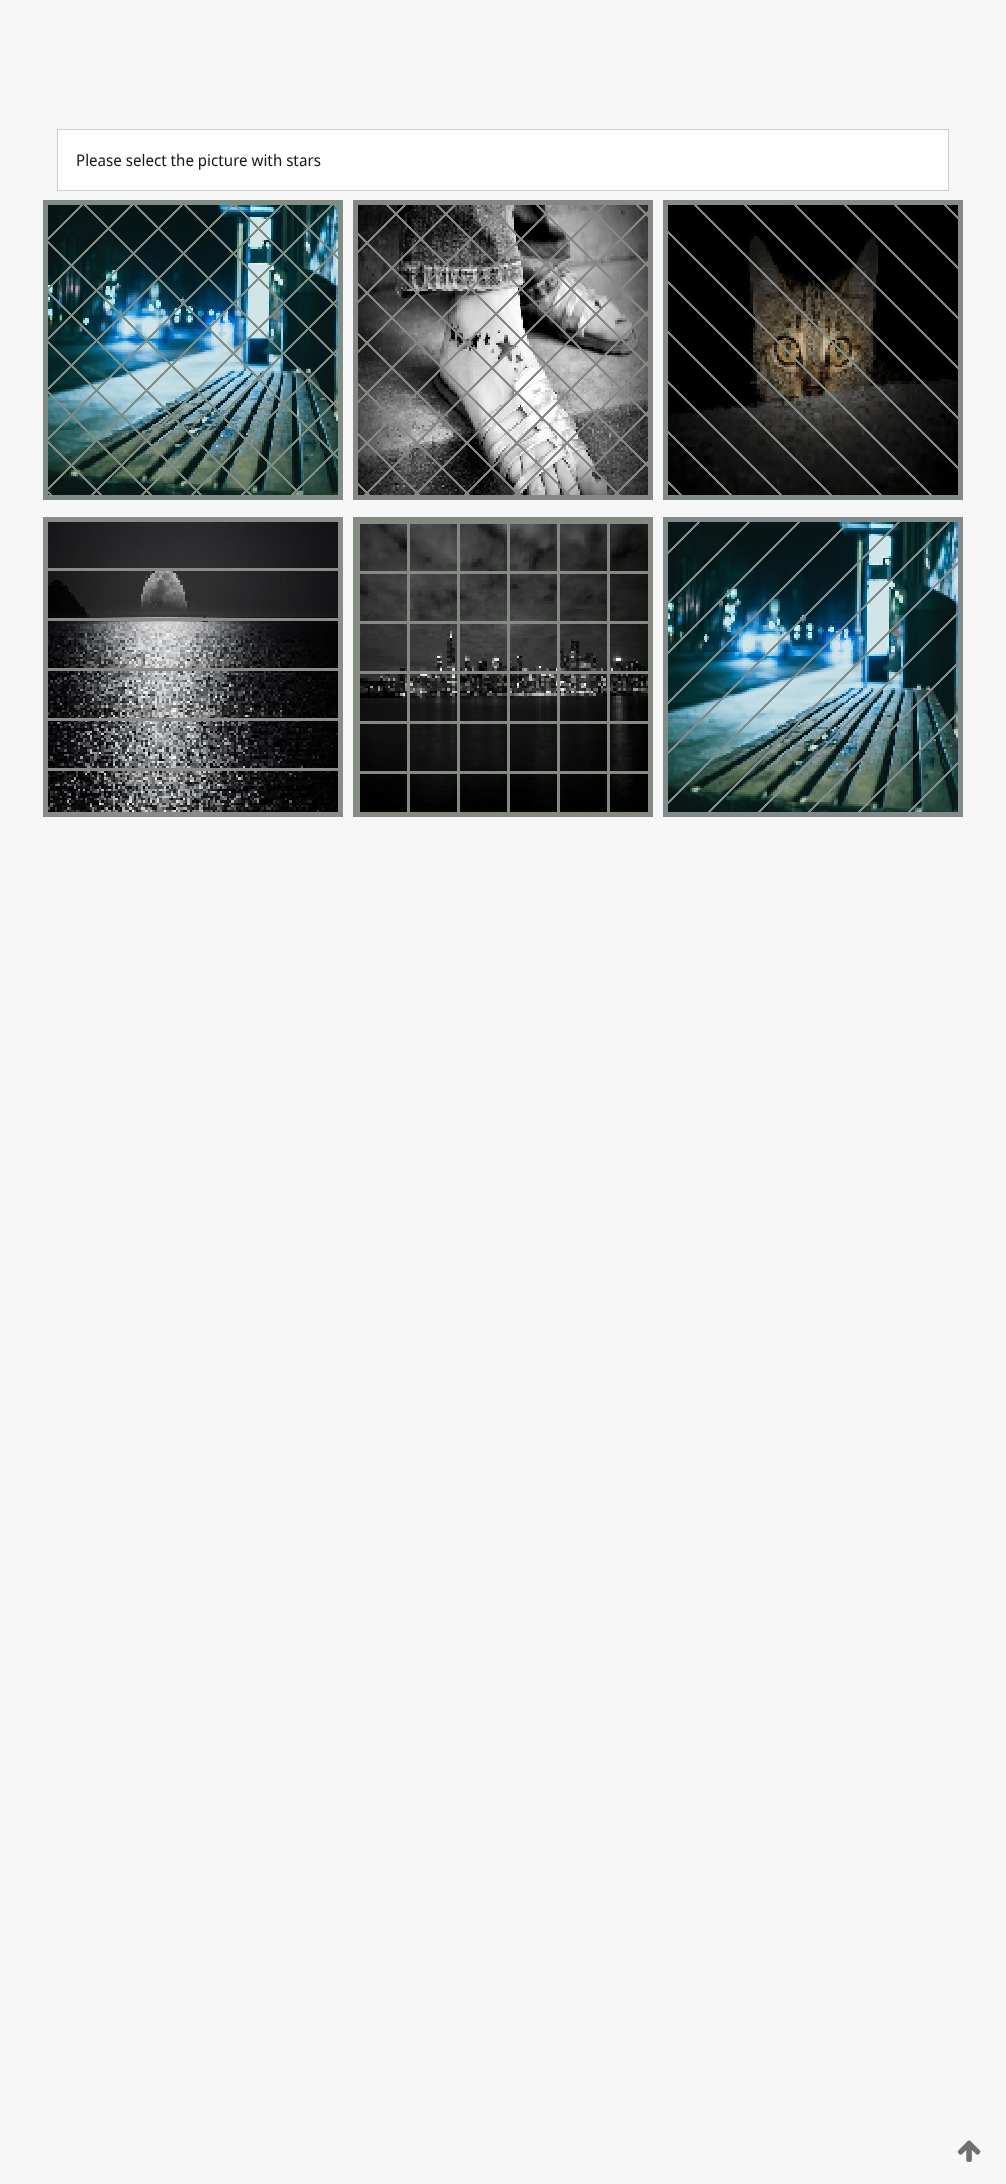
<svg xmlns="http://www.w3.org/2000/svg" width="1006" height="2184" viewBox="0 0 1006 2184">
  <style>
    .t1 { font: 16px Noto Sans Display; fill: #1a1a1a; }
  </style>
  <rect width="100%" height="100%" fill="#f7f7f7"/>
  <rect x="57.5" y="129.5" width="891" height="61" fill="#fff" stroke="#ccc"/>
  <text x="76" y="166" class="t1">Please select the picture with stars</text>
  <image x="43" y="200" width="300" height="300" href="images/1.png"/>
  <image x="353" y="200" width="300" height="300" href="images/2.png"/>
  <image x="663" y="200" width="300" height="300" href="images/3.png"/>
  <image x="43" y="517" width="300" height="300" href="images/4.png"/>
  <image x="353" y="517" width="300" height="300" href="images/5.png"/>
  <image x="663" y="517" width="300" height="300" href="images/6.png"/>
  <image x="957" y="2140" width="24" height="22" href="images/7.png"/>
</svg>
